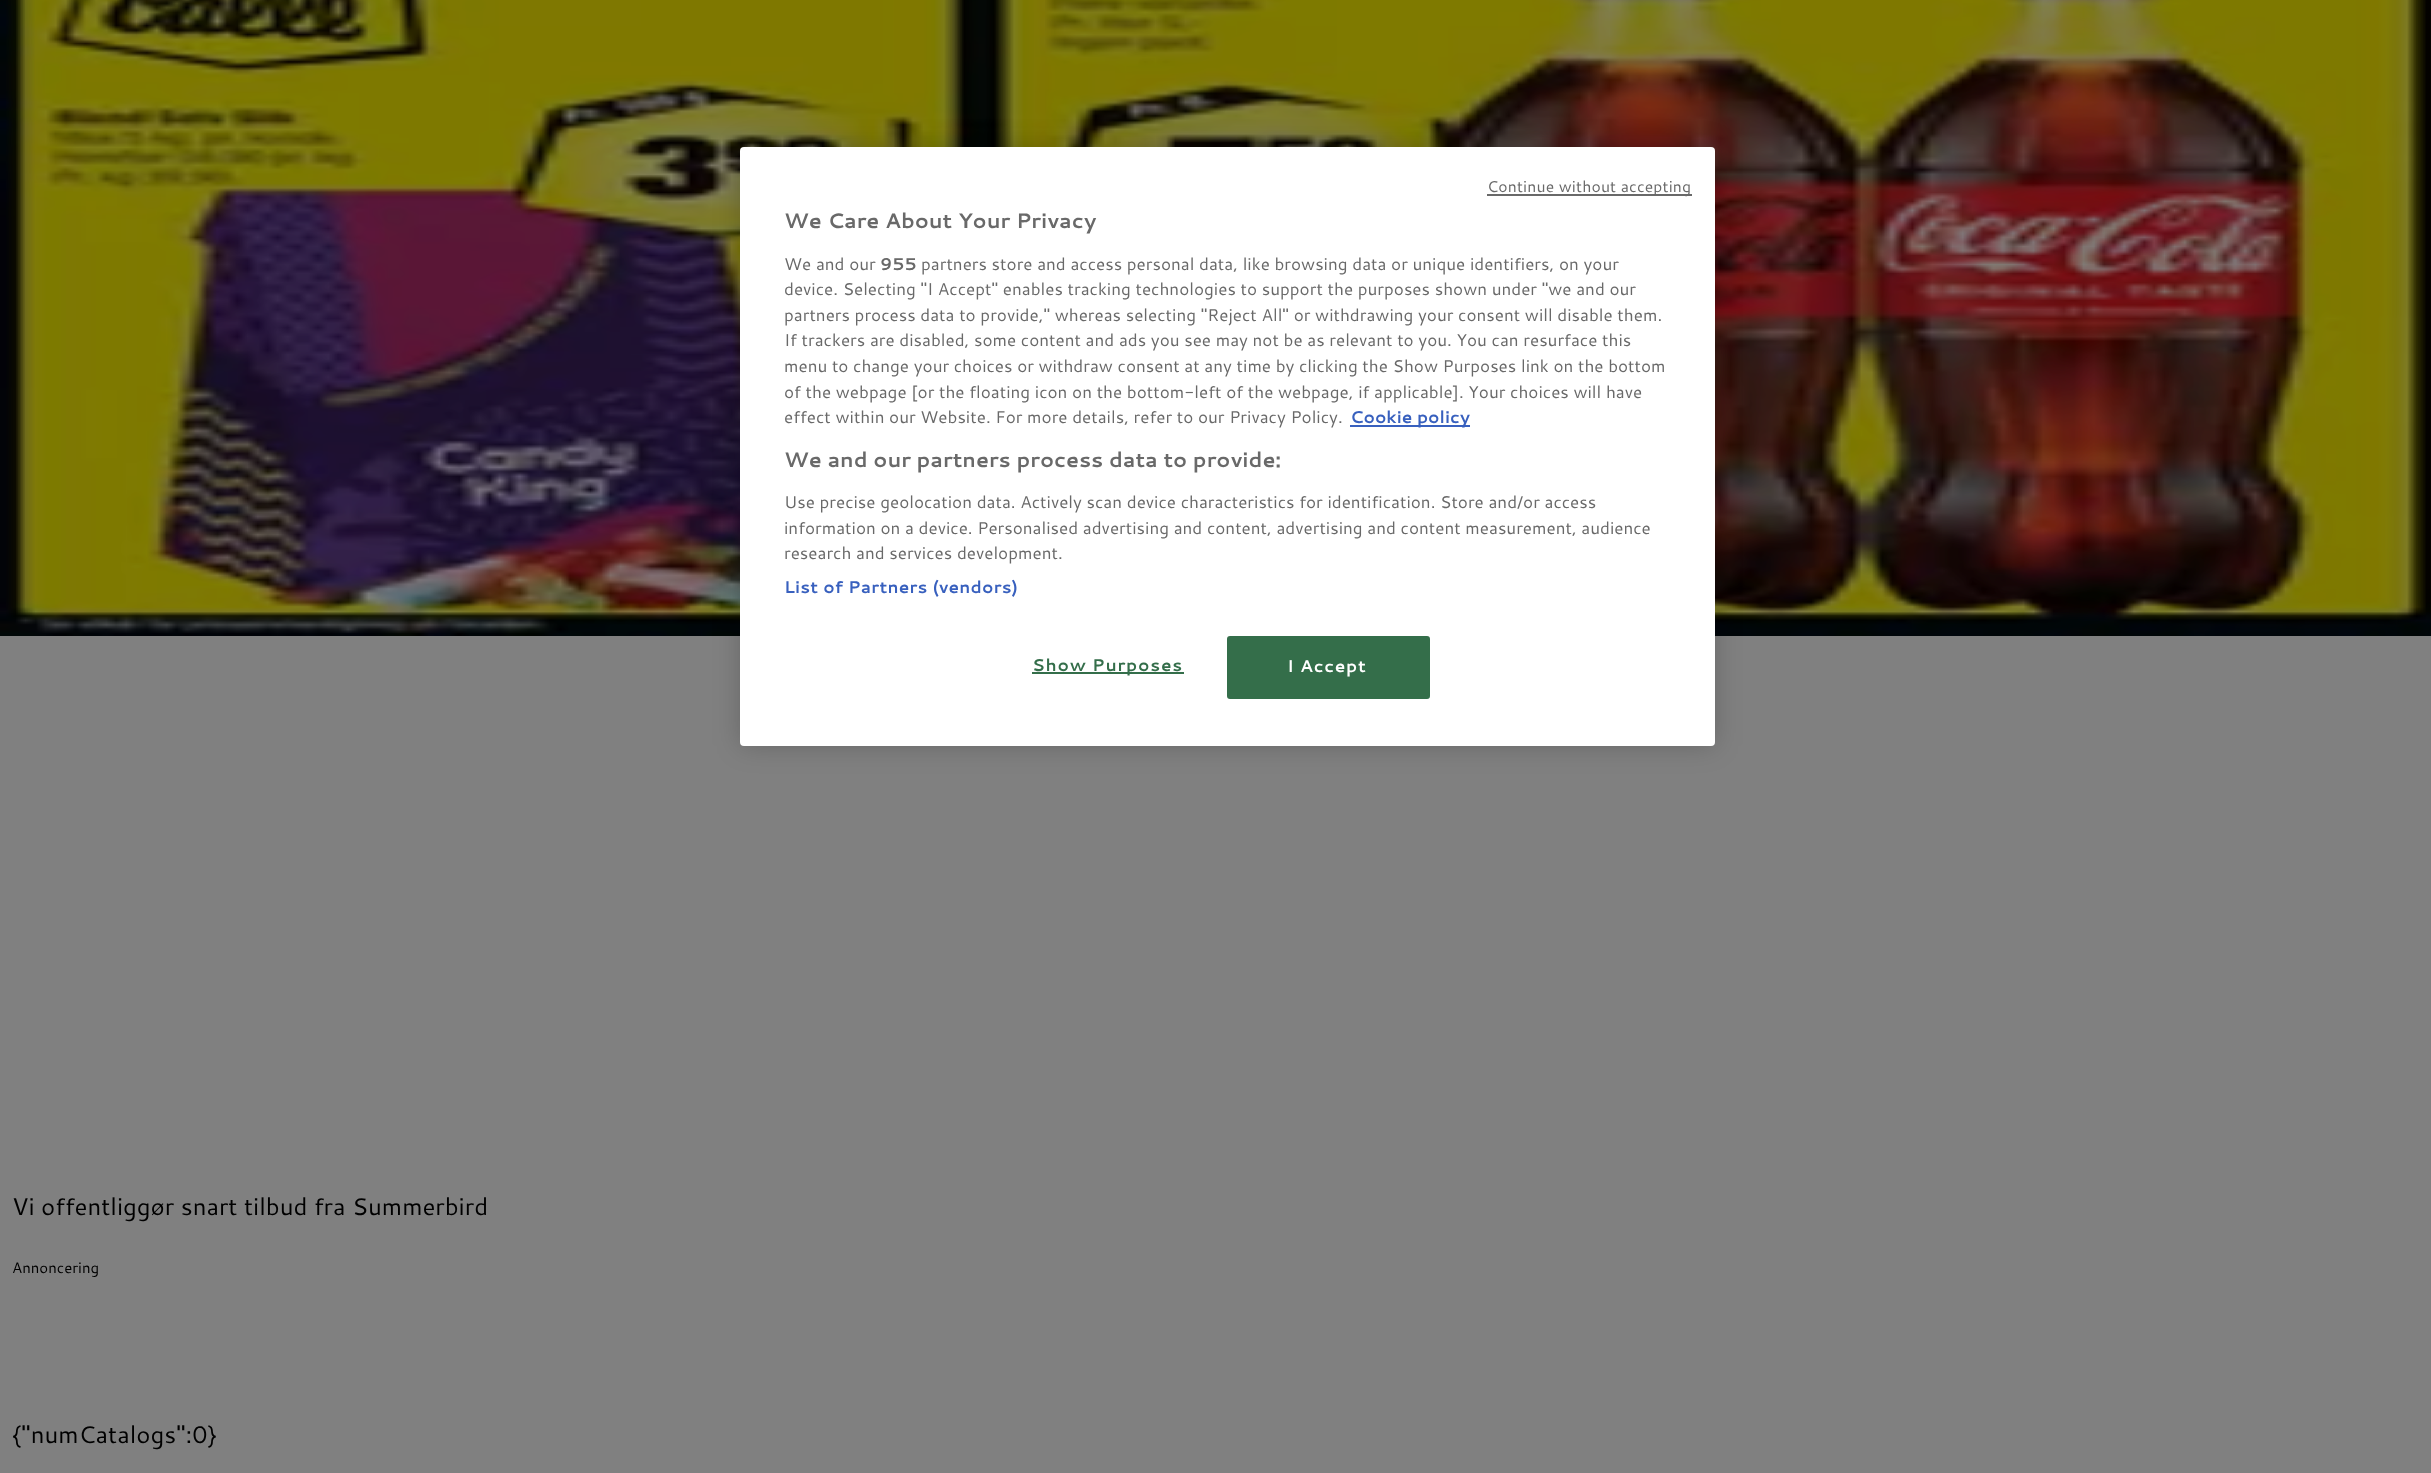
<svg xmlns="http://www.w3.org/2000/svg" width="2431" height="1473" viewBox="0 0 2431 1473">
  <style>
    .t1 { font: 15.75px Cantarell; letter-spacing: 0.15px; fill: #696969; }
    .t2 { font: bold 21px Cantarell; fill: #696969; }
    .t3 { font: 17.07px Cantarell; fill: #696969; }
    .t4 { font: bold 17.07px Cantarell; fill: #696969; }
    .t5 { font: bold 17.07px Cantarell; fill: #3860be; }
    .t6 { font: bold 17.07px Cantarell; letter-spacing: 0.2px; fill: #3860be; }
    .t7 { font: bold 17.07px Cantarell; letter-spacing: 0.8px; fill: #346e4a; }
    .t8 { font: bold 17.07px Cantarell; letter-spacing: 0.8px; fill: #fff; }
    .t9 { font: 24px Cantarell; fill: #000; }
    .t10 { font: 15px Cantarell; fill: #000; }
  </style>
  <rect width="100%" height="100%" fill="#808080"/>
  <image x="0" y="0" width="2431" height="636" href="images/1.png"/>
  <rect x="740" y="147" width="975" height="599" rx="4" fill="#00000033" filter="blur(13.5px)"/>
  <rect x="740" y="147" width="975" height="599" rx="4" fill="#fff"/>
  <rect x="1487" y="194" width="205" height="2" fill="#696969"/>
  <text x="1487" y="192" class="t1">Continue without accepting</text>
  <text x="784" y="228" class="t2">We Care About Your Privacy</text>
  <text x="784" y="270" class="t3">We and our</text>
  <text x="880" y="270" class="t4">955</text>
  <text x="921" y="270" class="t3">partners store and access personal data, like browsing data or unique identifiers, on your</text>
  <text x="784" y="295" class="t3">device. Selecting "I Accept" enables tracking technologies to support the purposes shown under "we and our</text>
  <text x="784" y="321" class="t3">partners process data to provide," whereas selecting "Reject All" or withdrawing your consent will disable them.</text>
  <text x="784" y="346" class="t3">If trackers are disabled, some content and ads you see may not be as relevant to you. You can resurface this</text>
  <text x="784" y="372" class="t3">menu to change your choices or withdraw consent at any time by clicking the Show Purposes link on the bottom</text>
  <text x="784" y="398" class="t3">of the webpage [or the floating icon on the bottom-left of the webpage, if applicable]. Your choices will have</text>
  <text x="784" y="423" class="t3">effect within our Website. For more details, refer to our Privacy Policy.</text>
  <rect x="1350" y="425" width="120" height="2" fill="#3860be"/>
  <text x="1350" y="423" class="t5">Cookie policy</text>
  <text x="784" y="467" class="t2">We and our partners process data to provide:</text>
  <text x="784" y="508" class="t3">Use precise geolocation data. Actively scan device characteristics for identification. Store and/or access</text>
  <text x="784" y="534" class="t3">information on a device. Personalised advertising and content, advertising and content measurement, audience</text>
  <text x="784" y="559" class="t3">research and services development.</text>
  <text x="784" y="593" class="t6">List of Partners (vendors)</text>
  <rect x="1032" y="672" width="152" height="2" fill="#346e4a"/>
  <text x="1032" y="671" class="t7">Show Purposes</text>
  <rect x="1228" y="637" width="201" height="61" rx="2" fill="#346e4a" stroke="#346e4a" stroke-width="2"/>
  <text x="1287" y="672" class="t8">I Accept</text>
  <text x="12" y="1215" class="t9">Vi offentliggør snart tilbud fra Summerbird</text>
  <text x="12" y="1273" class="t10">Annoncering</text>
  <text x="12" y="1443" class="t9">{"numCatalogs":0}</text>
</svg>
